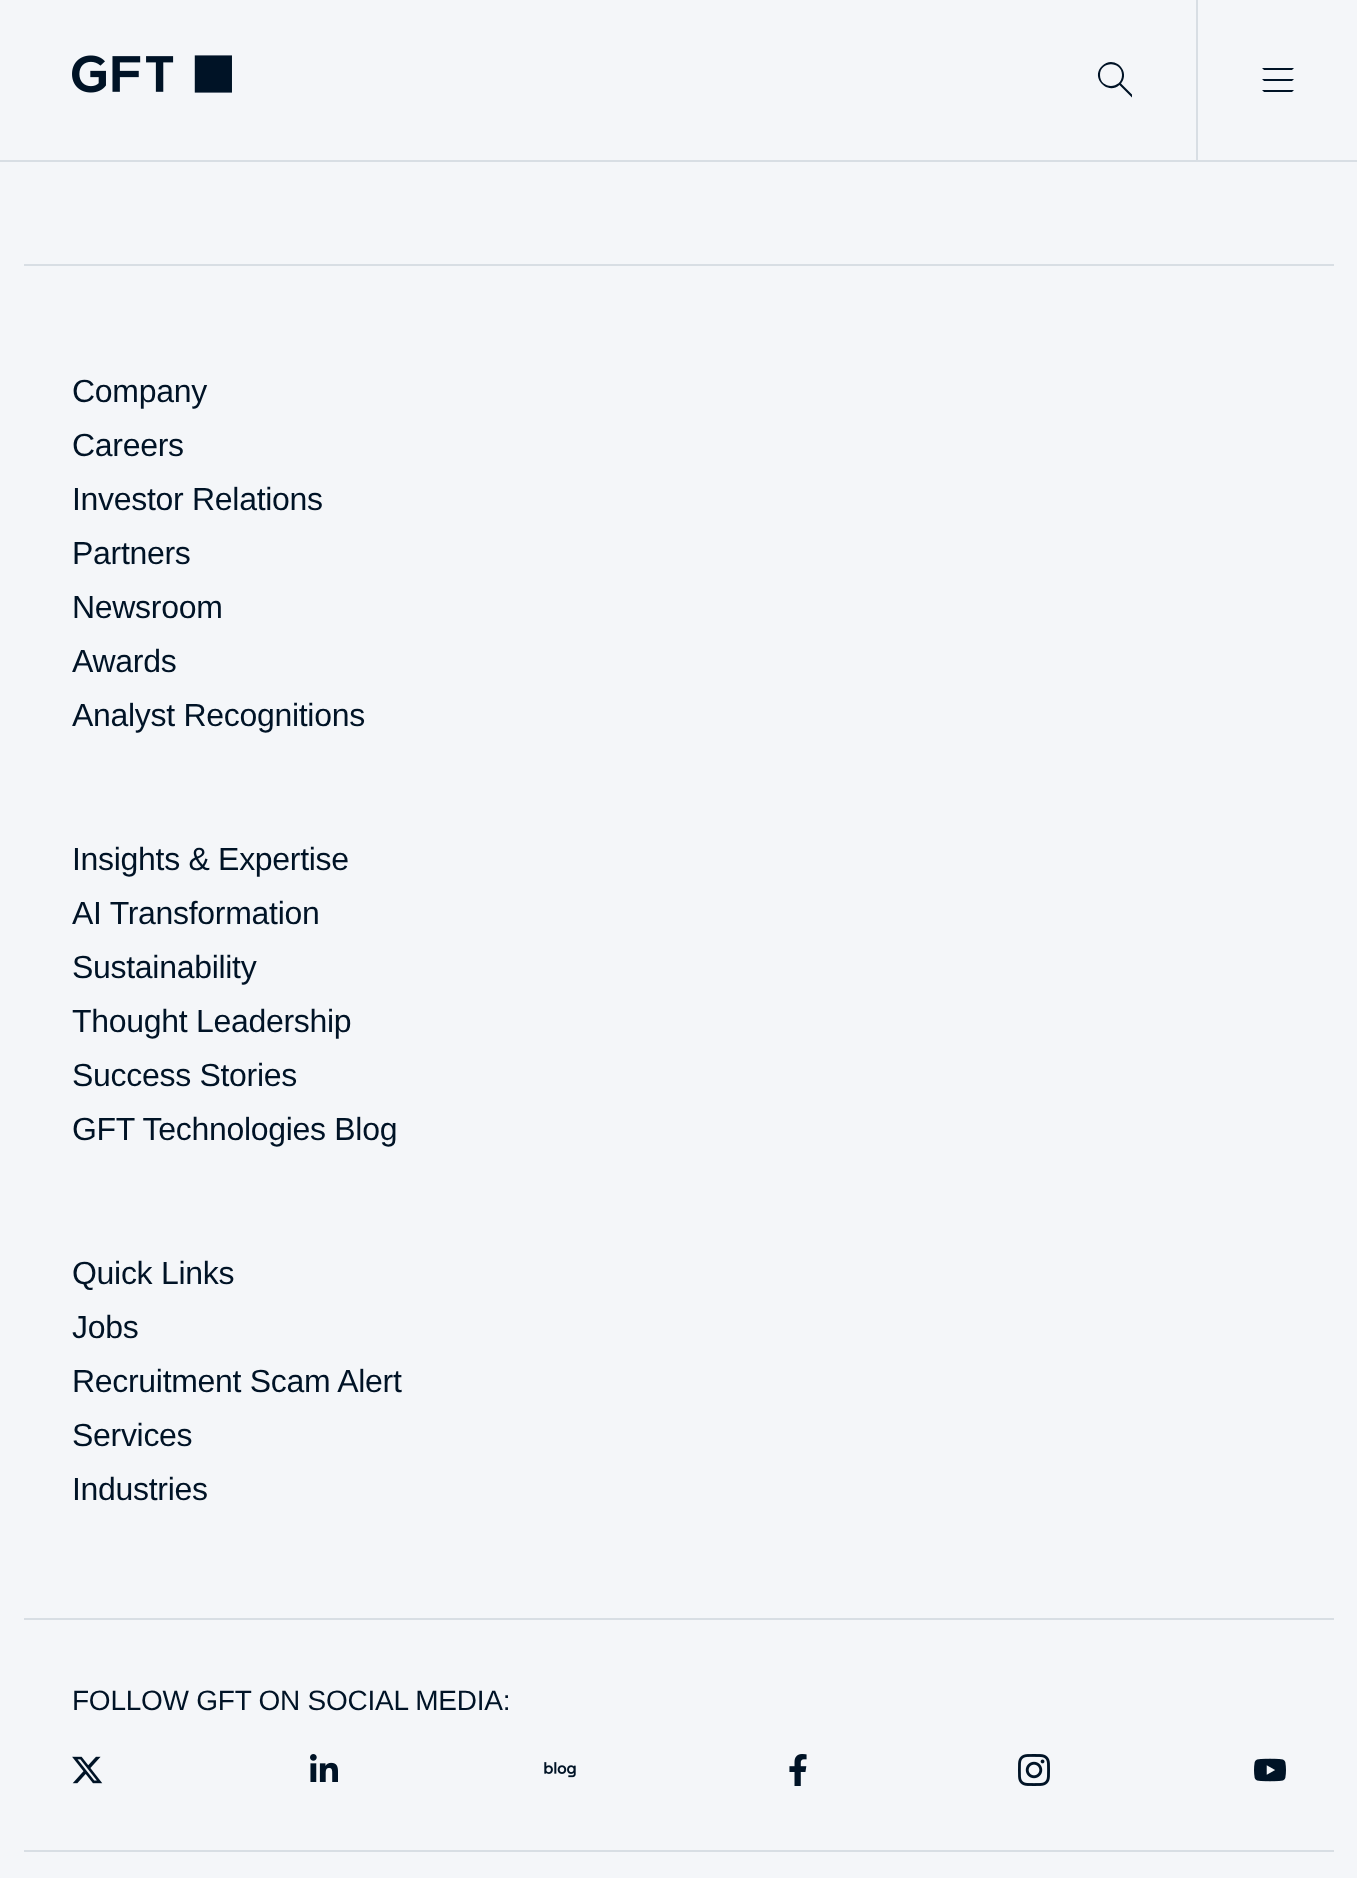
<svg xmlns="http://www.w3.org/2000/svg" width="1357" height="1878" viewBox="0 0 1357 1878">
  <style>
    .t1 { font: 32px Liberation Sans; letter-spacing: -0.3px; fill: #001326; }
    .t2 { font: 28px Liberation Sans; letter-spacing: -0.25px; fill: #001326; }
  </style>
  <rect width="100%" height="100%" fill="#f4f6f9"/>
  <rect x="0" y="160" width="1357" height="2" fill="#d8dee4"/>
  <image x="72" y="55" width="160" height="38" href="images/1.png"/>
  <path d="M1132 94.5L1121 83.5C1131.5 71 1113.5 54 1102 66C1090 77.5 1107.5 95.5 1119.5 85L1132 97.5ZM1100 75C1100 60.5 1122 60.5 1122 75C1122 89.5 1100 89.5 1100 75Z" fill="#001326"/>
  <rect x="1196" y="0" width="2" height="160" fill="#d8dee4"/>
  <image x="1262" y="68" width="32" height="24" href="images/2.png"/>
  <rect x="24" y="264" width="1310" height="2" fill="#d8dee4"/>
  <text x="72" y="402" class="t1">Company</text>
  <text x="72" y="456" class="t1">Careers</text>
  <text x="72" y="510" class="t1">Investor Relations</text>
  <text x="72" y="564" class="t1">Partners</text>
  <text x="72" y="618" class="t1">Newsroom</text>
  <text x="72" y="672" class="t1">Awards</text>
  <text x="72" y="726" class="t1">Analyst Recognitions</text>
  <text x="72" y="870" class="t1">Insights &amp; Expertise</text>
  <text x="72" y="924" class="t1">AI Transformation</text>
  <text x="72" y="978" class="t1">Sustainability</text>
  <text x="72" y="1032" class="t1">Thought Leadership</text>
  <text x="72" y="1086" class="t1">Success Stories</text>
  <text x="72" y="1140" class="t1">GFT Technologies Blog</text>
  <text x="72" y="1284" class="t1">Quick Links</text>
  <text x="72" y="1338" class="t1">Jobs</text>
  <text x="72" y="1392" class="t1">Recruitment Scam Alert</text>
  <text x="72" y="1446" class="t1">Services</text>
  <text x="72" y="1500" class="t1">Industries</text>
  <rect x="24" y="1618" width="1310" height="2" fill="#d8dee4"/>
  <text x="72" y="1710" class="t2">FOLLOW GFT ON SOCIAL MEDIA:</text>
  <image x="72" y="1756" width="31" height="28" href="images/3.png"/>
  <image x="310" y="1754" width="28" height="28" href="images/4.png"/>
  <image x="544" y="1762" width="32" height="16" href="images/5.png"/>
  <image x="789" y="1754" width="18" height="32" href="images/6.png"/>
  <image x="1018" y="1754" width="32" height="32" href="images/7.png"/>
  <image x="1254" y="1758" width="32" height="24" href="images/8.png"/>
  <rect x="24" y="1850" width="1310" height="2" fill="#d8dee4"/>
</svg>
